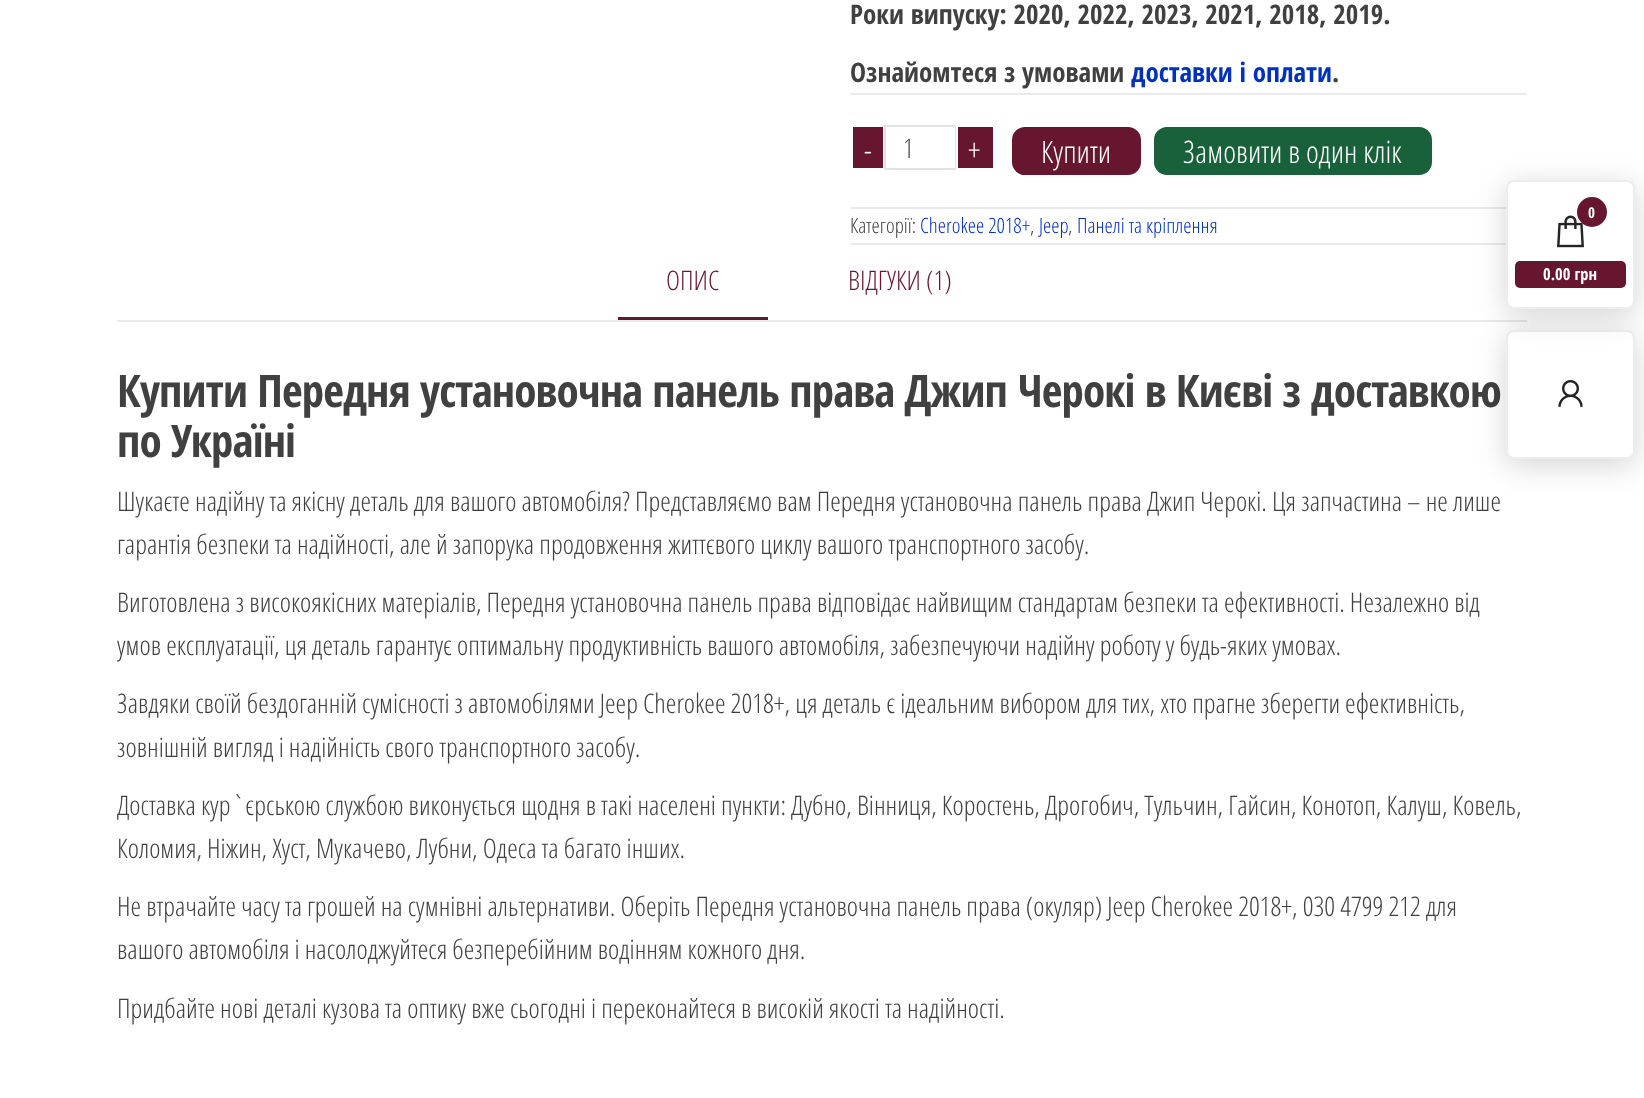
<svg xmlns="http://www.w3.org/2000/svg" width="1644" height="1098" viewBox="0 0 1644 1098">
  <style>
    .t1 { font: bold 27px Open Sans Condensed; fill: #404040; }
    .t2 { font: bold 27px Open Sans Condensed; fill: #0031bc; }
    .t3 { font: 300 31px Open Sans Condensed; fill: #fff; }
    .t4 { font: 300 27px Open Sans Condensed; fill: #464a4c; }
    .t5 { font: 300 21px Open Sans Condensed; fill: #404040; }
    .t6 { font: 300 21px Open Sans Condensed; fill: #0031bc; }
    .t7 { font: 300 27px Open Sans Condensed; fill: #66172f; }
    .t8 { font: bold 45px Open Sans Condensed; letter-spacing: -0.9px; fill: #404040; }
    .t9 { font: 300 27px Open Sans Condensed; fill: #404040; }
    .t10 { font: bold 15px Open Sans Condensed; fill: #fff; }
    .t11 { font: bold 16.5px Open Sans Condensed; fill: #fff; }
  </style>
  <rect width="100%" height="100%" fill="#fff"/>
  <text x="850" y="24" class="t1">Роки випуску: 2020, 2022, 2023, 2021, 2018, 2019.</text>
  <text x="850" y="82" class="t1">Ознайомтеся з умовами</text>
  <text x="1131" y="82" class="t2">доставки і оплати</text>
  <text x="1332" y="82" class="t1">.</text>
  <rect x="851" y="93" width="676" height="2" fill="#eaeaea"/>
  <rect x="851" y="207" width="655" height="2" fill="#eaeaea"/>
  <rect x="853" y="127" width="30" height="41" fill="#66172f"/>
  <text x="864" y="161" class="t3">-</text>
  <rect x="885" y="126" width="71" height="43" fill="none" stroke="#e2e2e2" stroke-width="2"/>
  <text x="903" y="158" class="t4">1</text>
  <rect x="957" y="126" width="37" height="43" fill="#66172f" stroke="#fff" stroke-width="2"/>
  <text x="968" y="161" class="t3">+</text>
  <rect x="1011" y="126" width="131" height="50" rx="14" fill="#66172f" stroke="#fff" stroke-width="2"/>
  <text x="1041" y="163" class="t3">Купити</text>
  <rect x="1153" y="126" width="280" height="50" rx="14" fill="#19613b" stroke="#fff" stroke-width="2"/>
  <text x="1183" y="163" class="t3">Замовити в один клік</text>
  <rect x="851" y="243" width="655" height="2" fill="#eaeaea"/>
  <text x="850" y="233" class="t5">Категорії:</text>
  <text x="920" y="233" class="t6">Cherokee 2018+</text>
  <text x="1030" y="233" class="t5">,</text>
  <text x="1039" y="233" class="t6">Jeep</text>
  <text x="1068" y="233" class="t5">,</text>
  <text x="1077" y="233" class="t6">Панелі та кріплення</text>
  <rect x="117" y="320" width="1410" height="2" fill="#eaeaea"/>
  <rect x="618" y="317" width="150" height="3" fill="#66172f"/>
  <text x="666" y="290" class="t7">ОПИС</text>
  <text x="848" y="290" class="t7">ВІДГУКИ (1)</text>
  <text x="117" y="407" class="t8">Купити Передня установочна панель права Джип Черокі в Києві з доставкою</text>
  <text x="117" y="457" class="t8">по Україні</text>
  <text x="117" y="511" class="t9">Шукаєте надійну та якісну деталь для вашого автомобіля? Представляємо вам Передня установочна панель права Джип Черокі. Ця запчастина – не лише</text>
  <text x="117" y="554" class="t9">гарантія безпеки та надійності, але й запорука продовження життєвого циклу вашого транспортного засобу.</text>
  <text x="117" y="612" class="t9">Виготовлена з високоякісних матеріалів, Передня установочна панель права відповідає найвищим стандартам безпеки та ефективності. Незалежно від</text>
  <text x="117" y="655" class="t9">умов експлуатації, ця деталь гарантує оптимальну продуктивність вашого автомобіля, забезпечуючи надійну роботу у будь-яких умовах.</text>
  <text x="117" y="713" class="t9">Завдяки своїй бездоганній сумісності з автомобілями Jeep Cherokee 2018+, ця деталь є ідеальним вибором для тих, хто прагне зберегти ефективність,</text>
  <text x="117" y="757" class="t9">зовнішній вигляд і надійність свого транспортного засобу.</text>
  <text x="117" y="815" class="t9">Доставка кур`єрською службою виконується щодня в такі населені пункти: Дубно, Вінниця, Коростень, Дрогобич, Тульчин, Гайсин, Конотоп, Калуш, Ковель,</text>
  <text x="117" y="858" class="t9">Коломия, Ніжин, Хуст, Мукачево, Лубни, Одеса та багато інших.</text>
  <text x="117" y="916" class="t9">Не втрачайте часу та грошей на сумнівні альтернативи. Оберіть Передня установочна панель права (окуляр) Jeep Cherokee 2018+, 030 4799 212 для</text>
  <text x="117" y="959" class="t9">вашого автомобіля і насолоджуйтеся безперебійним водінням кожного дня.</text>
  <text x="117" y="1018" class="t9">Придбайте нові деталі кузова та оптику вже сьогодні і переконайтеся в високій якості та надійності.</text>
  <rect x="1506" y="336" width="129" height="129" rx="8" fill="#0000002b" filter="blur(15px)"/>
  <rect x="1507" y="331" width="127" height="127" rx="7" fill="#fff" stroke="#ededed" stroke-width="2"/>
  <rect x="1506" y="186" width="129" height="129" rx="8" fill="#0000002b" filter="blur(15px)"/>
  <rect x="1507" y="181" width="127" height="127" rx="7" fill="#fff" stroke="#ededed" stroke-width="2"/>
  <image x="1557" y="215" width="27" height="33" href="images/1.png"/>
  <circle cx="1592" cy="212" r="15" fill="#66172f"/>
  <text x="1588" y="218" class="t10">0</text>
  <rect x="1515" y="261" width="111" height="27" rx="5" fill="#66172f"/>
  <text x="1543" y="280" class="t11">0.00 грн</text>
  <image x="1558" y="380" width="25" height="27" href="images/2.png"/>
</svg>
